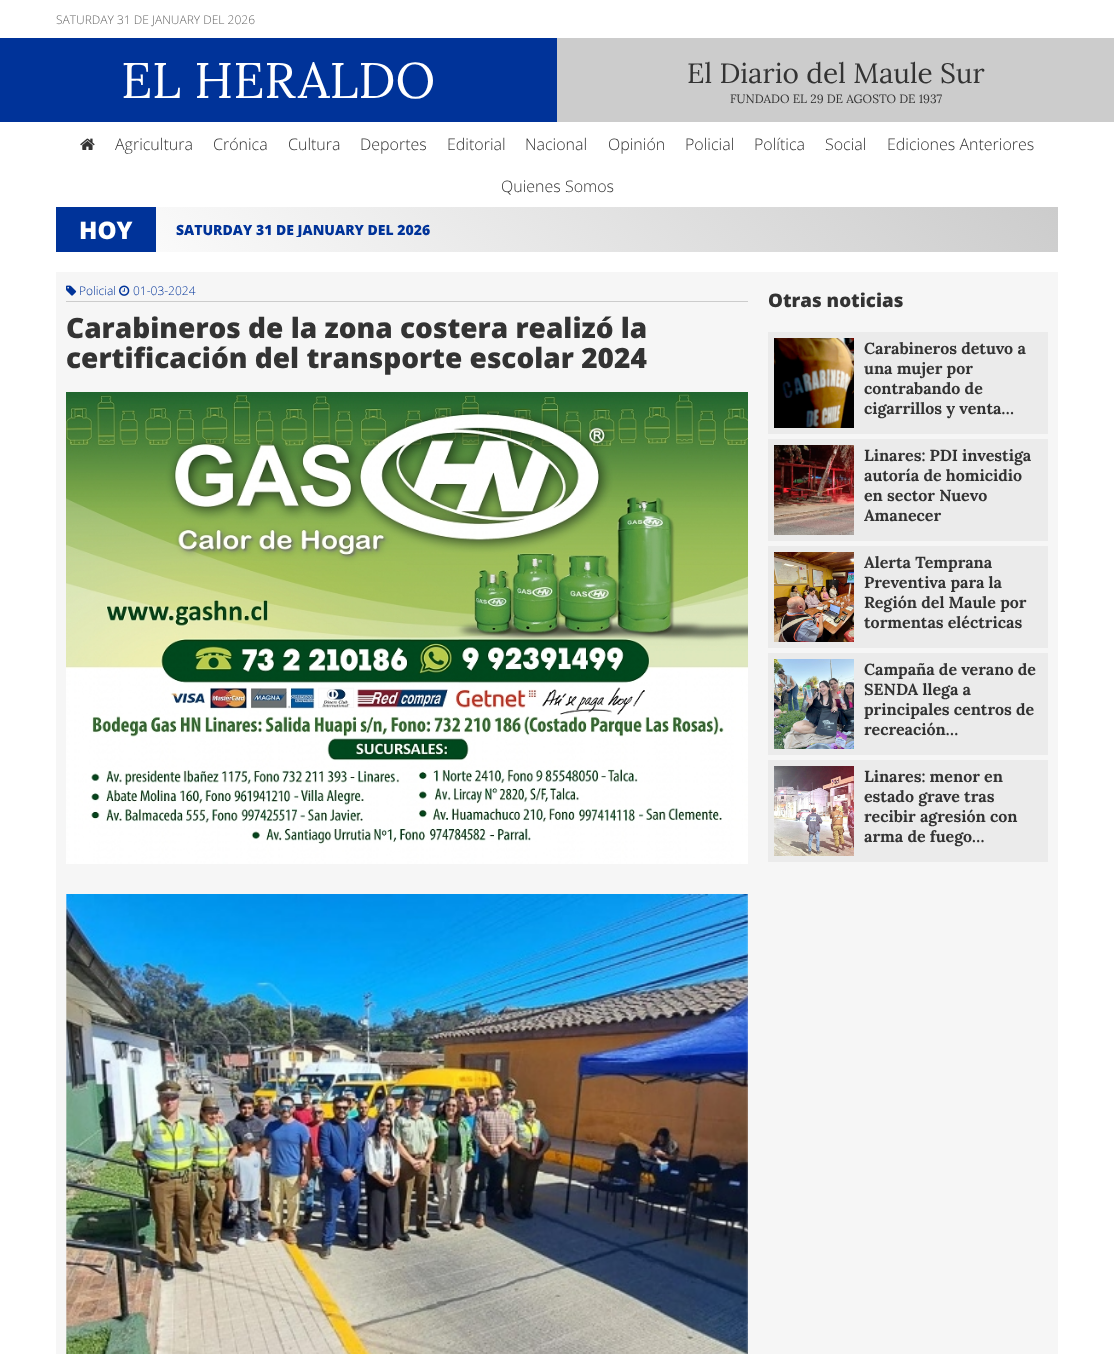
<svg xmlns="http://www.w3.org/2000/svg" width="1114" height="1354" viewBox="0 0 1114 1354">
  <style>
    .t1 { font: 300 12px Open Sans; fill: #666; }
    .t2 { font: 50px Lora; fill: #fff; }
    .t3 { font: 28px Lora; fill: #333; }
    .t4 { font: 12px Lora; fill: #333; }
    .t5 { font: 300 16px Open Sans; fill: #333; }
    .t6 { font: 800 24px Open Sans; fill: #fff; }
    .t7 { font: 800 14px Open Sans; fill: #039; }
    .t8 { font: 300 12px Open Sans; fill: #039; }
    .t9 { font: 800 28px Open Sans; fill: #333; }
    .t10 { font: 800 18.75px Open Sans; fill: #333; }
    .t11 { font: bold 16px Lora; fill: #333; }
  </style>
  <defs>
    <linearGradient id="g1" gradientUnits="userSpaceOnUse" x1="295" y1="491" x2="819" y2="-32"><stop offset="0" stop-color="#fff"/><stop offset="1" stop-color="#ccc"/></linearGradient>
    <clipPath id="clip1"><rect x="176" y="223" width="862" height="14"/></clipPath>
  </defs>
  <rect width="100%" height="100%" fill="#fff"/>
  <text x="56" y="24" class="t1">SATURDAY 31 DE JANUARY DEL 2026</text>
  <rect x="557" y="38" width="557" height="84" fill="#ccc"/>
  <rect x="0" y="38" width="557" height="84" fill="#039"/>
  <text x="121" y="98" class="t2">EL HERALDO</text>
  <text x="687" y="83" class="t3">El Diario del Maule Sur</text>
  <text x="730" y="103" class="t4">FUNDADO EL 29 DE AGOSTO DE 1937</text>
  <image x="80" y="138" width="15" height="12" href="images/1.png"/>
  <text x="115" y="150" class="t5">Agricultura</text>
  <text x="213" y="150" class="t5">Crónica</text>
  <text x="288" y="150" class="t5">Cultura</text>
  <text x="360" y="150" class="t5">Deportes</text>
  <text x="447" y="150" class="t5">Editorial</text>
  <text x="525" y="150" class="t5">Nacional</text>
  <text x="608" y="150" class="t5">Opinión</text>
  <text x="685" y="150" class="t5">Policial</text>
  <text x="754" y="150" class="t5">Política</text>
  <text x="825" y="150" class="t5">Social</text>
  <text x="887" y="150" class="t5">Ediciones Anteriores</text>
  <text x="501" y="192" class="t5">Quienes Somos</text>
  <rect x="156" y="207" width="902" height="45" fill="url(#g1)"/>
  <rect x="56" y="207" width="100" height="45" fill="#039"/>
  <text x="79" y="239" class="t6">HOY</text>
  <g clip-path="url(#clip1)">
    <text x="176" y="235" class="t7">SATURDAY 31 DE JANUARY DEL 2026</text>
  </g>
  <rect x="56" y="272" width="1002" height="1082" fill="#f6f6f6"/>
  <rect x="66" y="301" width="682" height="1" fill="#ccc"/>
  <image x="66" y="285" width="11" height="11" href="images/2.png"/>
  <text x="79" y="295" class="t8">Policial</text>
  <image x="119" y="285" width="11" height="11" href="images/3.png"/>
  <text x="133" y="295" class="t8">01-03-2024</text>
  <text x="66" y="338" class="t9">Carabineros de la zona costera realizó la</text>
  <text x="66" y="368" class="t9">certificación del transporte escolar 2024</text>
  <image x="66" y="392" width="682" height="472" href="images/4.png"/>
  <image x="66" y="894" width="682" height="460" href="images/5.png"/>
  <text x="768" y="307" class="t10">Otras noticias</text>
  <rect x="768" y="332" width="280" height="102" fill="#ebebeb"/>
  <image x="774" y="338" width="80" height="90" href="images/6.png"/>
  <text x="864" y="354" class="t11">Carabineros detuvo a</text>
  <text x="864" y="374" class="t11">una mujer por</text>
  <text x="864" y="394" class="t11">contrabando de</text>
  <text x="864" y="414" class="t11">cigarrillos y venta…</text>
  <rect x="768" y="439" width="280" height="102" fill="#ebebeb"/>
  <image x="774" y="445" width="80" height="90" href="images/7.png"/>
  <text x="864" y="461" class="t11">Linares: PDI investiga</text>
  <text x="864" y="481" class="t11">autoría de homicidio</text>
  <text x="864" y="501" class="t11">en sector Nuevo</text>
  <text x="864" y="521" class="t11">Amanecer</text>
  <rect x="768" y="546" width="280" height="102" fill="#ebebeb"/>
  <image x="774" y="552" width="80" height="90" href="images/8.png"/>
  <text x="864" y="568" class="t11">Alerta Temprana</text>
  <text x="864" y="588" class="t11">Preventiva para la</text>
  <text x="864" y="608" class="t11">Región del Maule por</text>
  <text x="864" y="628" class="t11">tormentas eléctricas</text>
  <rect x="768" y="653" width="280" height="102" fill="#ebebeb"/>
  <image x="774" y="659" width="80" height="90" href="images/9.png"/>
  <text x="864" y="675" class="t11">Campaña de verano de</text>
  <text x="864" y="695" class="t11">SENDA llega a</text>
  <text x="864" y="715" class="t11">principales centros de</text>
  <text x="864" y="735" class="t11">recreación…</text>
  <rect x="768" y="760" width="280" height="102" fill="#ebebeb"/>
  <image x="774" y="766" width="80" height="90" href="images/10.png"/>
  <text x="864" y="782" class="t11">Linares: menor en</text>
  <text x="864" y="802" class="t11">estado grave tras</text>
  <text x="864" y="822" class="t11">recibir agresión con</text>
  <text x="864" y="842" class="t11">arma de fuego…</text>
</svg>
